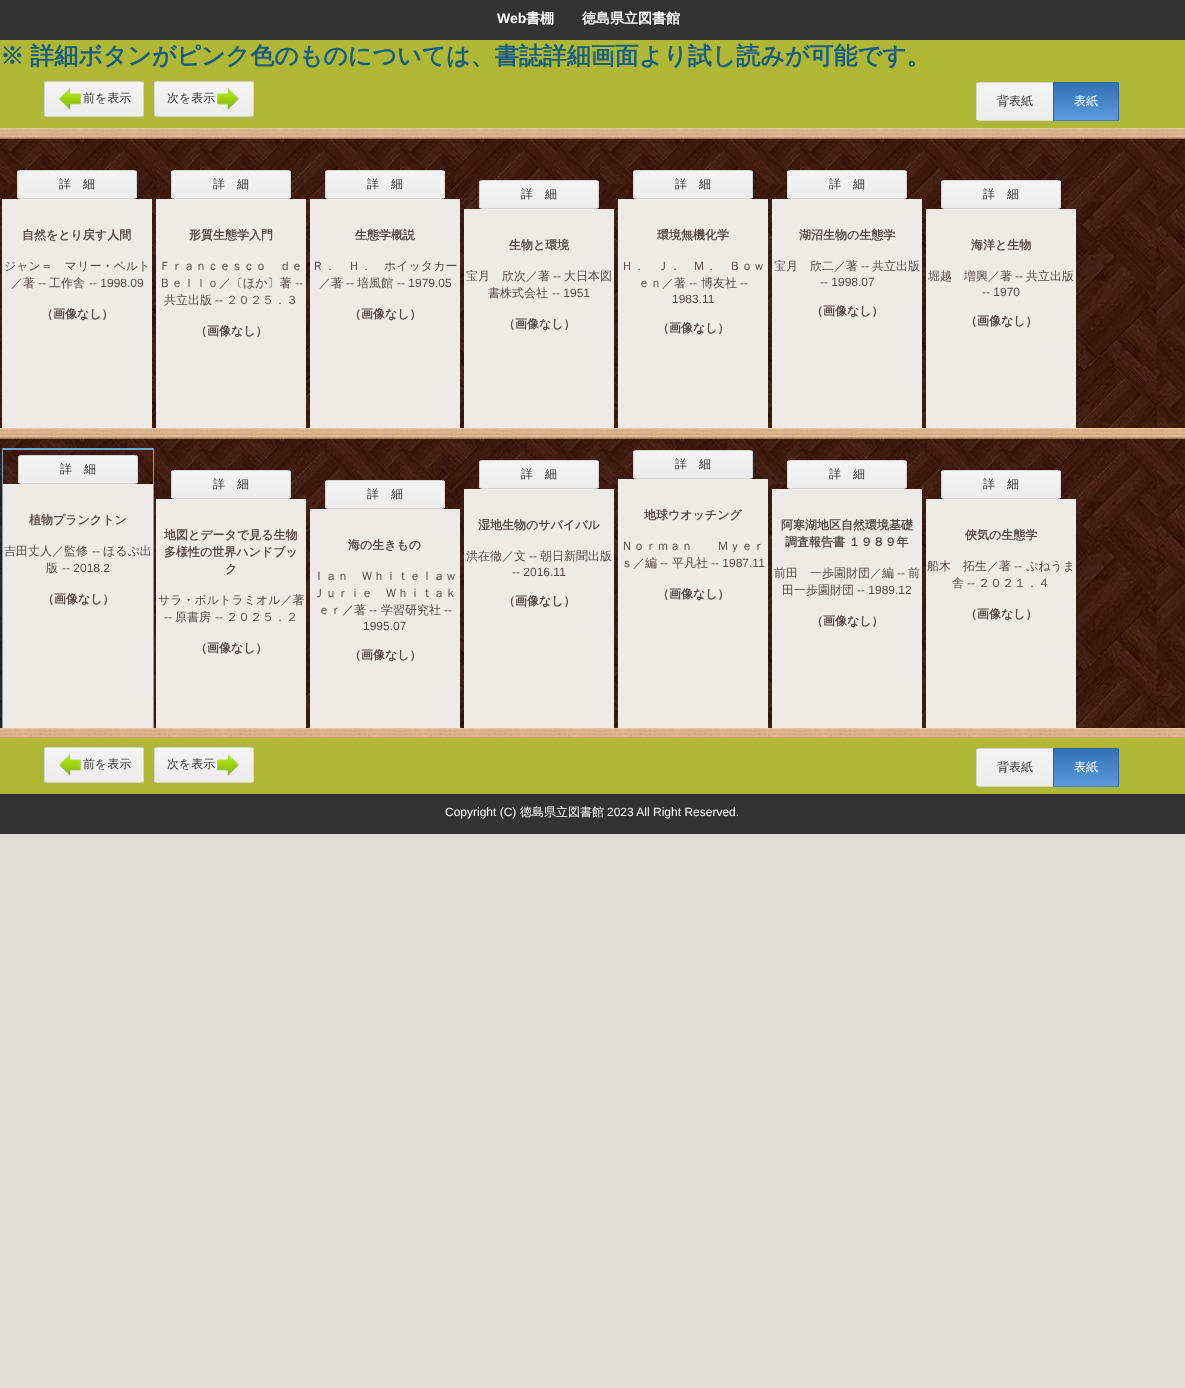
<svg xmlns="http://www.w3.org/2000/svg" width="1185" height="1388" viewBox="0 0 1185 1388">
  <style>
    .t1 { font: bold 14px Liberation Sans; fill: #fff; }
    .t2 { font: bold 14px WenQuanYi Zen Hei; fill: #fff; }
    .t3 { font: bold 24px WenQuanYi Zen Hei; fill: #165e83; }
    .t4 { font: 500 12px WenQuanYi Zen Hei; fill: #333; }
    .t5 { font: 500 12px WenQuanYi Zen Hei; fill: #fff; }
    .t6 { font: bold 12px WenQuanYi Zen Hei; fill: #564b47; }
    .t7 { font: 500 12px WenQuanYi Zen Hei; fill: #564b47; }
    .t8 { font: 12px Liberation Sans; fill: #564b47; }
    .t9 { font: 12px Liberation Sans; fill: #fff; }
  </style>
  <defs>
    <clipPath id="clip1"><rect x="44" y="81" width="100" height="36" rx="2.5"/></clipPath>
    <linearGradient id="g1" gradientUnits="userSpaceOnUse" x1="94" y1="82" x2="94" y2="116"><stop offset="0" stop-color="#f4f4f4"/><stop offset="1" stop-color="#ececec"/></linearGradient>
    <clipPath id="clip2"><rect x="154" y="81" width="100" height="36" rx="2.5"/></clipPath>
    <linearGradient id="g2" gradientUnits="userSpaceOnUse" x1="204" y1="82" x2="204" y2="116"><stop offset="0" stop-color="#f4f4f4"/><stop offset="1" stop-color="#ececec"/></linearGradient>
    <linearGradient id="g3" gradientUnits="userSpaceOnUse" x1="1015" y1="83" x2="1015" y2="120"><stop offset="0" stop-color="#f4f4f4"/><stop offset="1" stop-color="#ececec"/></linearGradient>
    <linearGradient id="g4" gradientUnits="userSpaceOnUse" x1="1086" y1="46" x2="1086" y2="83"><stop offset="0" stop-color="#3072b3"/><stop offset="1" stop-color="#599bdc"/></linearGradient>
    <linearGradient id="g5" gradientUnits="userSpaceOnUse" x1="1086" y1="83" x2="1086" y2="120"><stop offset="0" stop-color="#3072b3"/><stop offset="1" stop-color="#599bdc"/></linearGradient>
    <linearGradient id="g6" gradientUnits="userSpaceOnUse" x1="1086" y1="120" x2="1086" y2="157"><stop offset="0" stop-color="#3072b3"/><stop offset="1" stop-color="#599bdc"/></linearGradient>
    <clipPath id="clip3"><rect x="17" y="170" width="120" height="29" rx="2.5"/></clipPath>
    <linearGradient id="g7" gradientUnits="userSpaceOnUse" x1="77" y1="171" x2="77" y2="198"><stop offset="0" stop-color="#f4f4f4"/><stop offset="1" stop-color="#ececec"/></linearGradient>
    <clipPath id="clip4"><rect x="171" y="170" width="120" height="29" rx="2.5"/></clipPath>
    <linearGradient id="g8" gradientUnits="userSpaceOnUse" x1="231" y1="171" x2="231" y2="198"><stop offset="0" stop-color="#f4f4f4"/><stop offset="1" stop-color="#ececec"/></linearGradient>
    <clipPath id="clip5"><rect x="325" y="170" width="120" height="29" rx="2.5"/></clipPath>
    <linearGradient id="g9" gradientUnits="userSpaceOnUse" x1="385" y1="171" x2="385" y2="198"><stop offset="0" stop-color="#f4f4f4"/><stop offset="1" stop-color="#ececec"/></linearGradient>
    <clipPath id="clip6"><rect x="479" y="180" width="120" height="29" rx="2.5"/></clipPath>
    <linearGradient id="g10" gradientUnits="userSpaceOnUse" x1="539" y1="181" x2="539" y2="208"><stop offset="0" stop-color="#f4f4f4"/><stop offset="1" stop-color="#ececec"/></linearGradient>
    <clipPath id="clip7"><rect x="633" y="170" width="120" height="29" rx="2.5"/></clipPath>
    <linearGradient id="g11" gradientUnits="userSpaceOnUse" x1="693" y1="171" x2="693" y2="198"><stop offset="0" stop-color="#f4f4f4"/><stop offset="1" stop-color="#ececec"/></linearGradient>
    <clipPath id="clip8"><rect x="787" y="170" width="120" height="29" rx="2.5"/></clipPath>
    <linearGradient id="g12" gradientUnits="userSpaceOnUse" x1="847" y1="171" x2="847" y2="198"><stop offset="0" stop-color="#f4f4f4"/><stop offset="1" stop-color="#ececec"/></linearGradient>
    <clipPath id="clip9"><rect x="941" y="180" width="120" height="29" rx="2.5"/></clipPath>
    <linearGradient id="g13" gradientUnits="userSpaceOnUse" x1="1001" y1="181" x2="1001" y2="208"><stop offset="0" stop-color="#f4f4f4"/><stop offset="1" stop-color="#ececec"/></linearGradient>
    <clipPath id="clip10"><rect x="18" y="455" width="120" height="29" rx="2.5"/></clipPath>
    <linearGradient id="g14" gradientUnits="userSpaceOnUse" x1="78" y1="456" x2="78" y2="483"><stop offset="0" stop-color="#f4f4f4"/><stop offset="1" stop-color="#ececec"/></linearGradient>
    <clipPath id="clip11"><rect x="171" y="470" width="120" height="29" rx="2.5"/></clipPath>
    <linearGradient id="g15" gradientUnits="userSpaceOnUse" x1="231" y1="471" x2="231" y2="498"><stop offset="0" stop-color="#f4f4f4"/><stop offset="1" stop-color="#ececec"/></linearGradient>
    <clipPath id="clip12"><rect x="325" y="480" width="120" height="29" rx="2.5"/></clipPath>
    <linearGradient id="g16" gradientUnits="userSpaceOnUse" x1="385" y1="481" x2="385" y2="508"><stop offset="0" stop-color="#f4f4f4"/><stop offset="1" stop-color="#ececec"/></linearGradient>
    <clipPath id="clip13"><rect x="479" y="460" width="120" height="29" rx="2.5"/></clipPath>
    <linearGradient id="g17" gradientUnits="userSpaceOnUse" x1="539" y1="461" x2="539" y2="488"><stop offset="0" stop-color="#f4f4f4"/><stop offset="1" stop-color="#ececec"/></linearGradient>
    <clipPath id="clip14"><rect x="633" y="450" width="120" height="29" rx="2.5"/></clipPath>
    <linearGradient id="g18" gradientUnits="userSpaceOnUse" x1="693" y1="451" x2="693" y2="478"><stop offset="0" stop-color="#f4f4f4"/><stop offset="1" stop-color="#ececec"/></linearGradient>
    <clipPath id="clip15"><rect x="787" y="460" width="120" height="29" rx="2.5"/></clipPath>
    <linearGradient id="g19" gradientUnits="userSpaceOnUse" x1="847" y1="461" x2="847" y2="488"><stop offset="0" stop-color="#f4f4f4"/><stop offset="1" stop-color="#ececec"/></linearGradient>
    <clipPath id="clip16"><rect x="941" y="470" width="120" height="29" rx="2.5"/></clipPath>
    <linearGradient id="g20" gradientUnits="userSpaceOnUse" x1="1001" y1="471" x2="1001" y2="498"><stop offset="0" stop-color="#f4f4f4"/><stop offset="1" stop-color="#ececec"/></linearGradient>
    <clipPath id="clip17"><rect x="44" y="747" width="100" height="36" rx="2.5"/></clipPath>
    <linearGradient id="g21" gradientUnits="userSpaceOnUse" x1="94" y1="748" x2="94" y2="782"><stop offset="0" stop-color="#f4f4f4"/><stop offset="1" stop-color="#ececec"/></linearGradient>
    <clipPath id="clip18"><rect x="154" y="747" width="100" height="36" rx="2.5"/></clipPath>
    <linearGradient id="g22" gradientUnits="userSpaceOnUse" x1="204" y1="748" x2="204" y2="782"><stop offset="0" stop-color="#f4f4f4"/><stop offset="1" stop-color="#ececec"/></linearGradient>
    <linearGradient id="g23" gradientUnits="userSpaceOnUse" x1="1015" y1="749" x2="1015" y2="786"><stop offset="0" stop-color="#f4f4f4"/><stop offset="1" stop-color="#ececec"/></linearGradient>
    <linearGradient id="g24" gradientUnits="userSpaceOnUse" x1="1086" y1="712" x2="1086" y2="749"><stop offset="0" stop-color="#3072b3"/><stop offset="1" stop-color="#599bdc"/></linearGradient>
    <linearGradient id="g25" gradientUnits="userSpaceOnUse" x1="1086" y1="749" x2="1086" y2="786"><stop offset="0" stop-color="#3072b3"/><stop offset="1" stop-color="#599bdc"/></linearGradient>
    <linearGradient id="g26" gradientUnits="userSpaceOnUse" x1="1086" y1="786" x2="1086" y2="823"><stop offset="0" stop-color="#3072b3"/><stop offset="1" stop-color="#599bdc"/></linearGradient>
  </defs>
  <rect width="100%" height="100%" fill="#e1ddd9"/>
  <rect x="0" y="0" width="1185" height="40" fill="#333"/>
  <text x="497" y="23" class="t1">Web</text>
  <text x="526" y="23" class="t2">書棚　　徳島県立図書館</text>
  <rect x="0" y="40" width="1185" height="88" fill="#b0b735"/>
  <text x="0" y="64" word-spacing="-1" class="t3">※ 詳細ボタンがピンク色のものについては、書誌詳細画面より試し読みが可能です。</text>
  <g clip-path="url(#clip1)">
    <rect x="44" y="82" width="100" height="34" fill="url(#g1)"/>
  </g>
  <rect x="44.5" y="81.5" width="99" height="35" rx="2" fill="none" stroke="#d4d4d4"/>
  <image x="59" y="88" width="22" height="22" href="images/1.png"/>
  <text x="83" y="102" class="t4">前を表示</text>
  <g clip-path="url(#clip2)">
    <rect x="154" y="82" width="100" height="34" fill="url(#g2)"/>
  </g>
  <rect x="154.5" y="81.5" width="99" height="35" rx="2" fill="none" stroke="#d4d4d4"/>
  <text x="167" y="102" class="t4">次を表示</text>
  <image x="217" y="88" width="22" height="22" href="images/2.png"/>
  <rect x="976" y="83" width="77" height="37" fill="url(#g3)"/>
  <path d="M978.5 82.5H1053.5V120.5H978.5C977.5 120.5 976.5 119.5 976.5 118.5V84.5C976.5 83.5 977.5 82.5 978.5 82.5Z" fill="none" stroke="#d4d4d4"/>
  <text x="997" y="105" class="t4">背表紙</text>
  <rect x="1053" y="82" width="66" height="1" fill="url(#g4)"/>
  <rect x="1054" y="83" width="65" height="37" fill="url(#g5)"/>
  <rect x="1053" y="120" width="66" height="1" fill="url(#g6)"/>
  <path d="M1053 82L1054 83H1117L1118 84V83L1117 82Z" fill="#2a65a0"/>
  <path d="M1119 119V84L1118.5 82.5L1117.5 83.5L1118 84V119L1117.5 119.5L1118.5 120.5Z" fill="#2a65a0"/>
  <path d="M1117 121L1118 120H1117H1054L1053 121Z" fill="#3884cf"/>
  <path d="M1053 82V121L1054 120V83Z" fill="#2a65a0"/>
  <text x="1074" y="105" class="t5">表紙</text>
  <image x="0" y="128" width="1185" height="600" href="images/3.png"/>
  <g clip-path="url(#clip3)">
    <rect x="17" y="171" width="120" height="27" fill="url(#g7)"/>
  </g>
  <rect x="17.5" y="170.5" width="119" height="28" rx="2" fill="none" stroke="#d4d4d4"/>
  <text x="59" y="188" class="t4">詳　細</text>
  <rect x="2" y="199" width="150" height="229" fill="#eeebe7"/>
  <text x="22" y="239" class="t6">自然をとり戻す人間</text>
  <text x="4" y="270" class="t7">ジャン＝　マリー・ペルト</text>
  <text x="11" y="287" class="t7">／著</text>
  <text x="38" y="287" class="t8">--</text>
  <text x="49" y="287" class="t7">工作舎</text>
  <text x="89" y="287" class="t8">-- 1998.09</text>
  <text x="41" y="318" class="t6">（画像なし）</text>
  <g clip-path="url(#clip4)">
    <rect x="171" y="171" width="120" height="27" fill="url(#g8)"/>
  </g>
  <rect x="171.5" y="170.5" width="119" height="28" rx="2" fill="none" stroke="#d4d4d4"/>
  <text x="213" y="188" class="t4">詳　細</text>
  <rect x="156" y="199" width="150" height="229" fill="#eeebe7"/>
  <text x="189" y="239" class="t6">形質生態学入門</text>
  <text x="159" y="270" class="t7">Ｆｒａｎｃｅｓｃｏ　ｄｅ</text>
  <text x="159" y="287" class="t7">Ｂｅｌｌｏ／〔ほか〕著</text>
  <text x="295" y="287" class="t8">--</text>
  <text x="164" y="304" class="t7">共立出版</text>
  <text x="215" y="304" class="t8">--</text>
  <text x="226" y="304" class="t7">２０２５．３</text>
  <text x="195" y="335" class="t6">（画像なし）</text>
  <g clip-path="url(#clip5)">
    <rect x="325" y="171" width="120" height="27" fill="url(#g9)"/>
  </g>
  <rect x="325.5" y="170.5" width="119" height="28" rx="2" fill="none" stroke="#d4d4d4"/>
  <text x="367" y="188" class="t4">詳　細</text>
  <rect x="310" y="199" width="150" height="229" fill="#eeebe7"/>
  <text x="355" y="239" class="t6">生態学概説</text>
  <text x="312" y="270" class="t7">Ｒ．　Ｈ．　ホイッタカー</text>
  <text x="319" y="287" class="t7">／著</text>
  <text x="346" y="287" class="t8">--</text>
  <text x="357" y="287" class="t7">培風館</text>
  <text x="397" y="287" class="t8">-- 1979.05</text>
  <text x="349" y="318" class="t6">（画像なし）</text>
  <g clip-path="url(#clip6)">
    <rect x="479" y="181" width="120" height="27" fill="url(#g10)"/>
  </g>
  <rect x="479.5" y="180.5" width="119" height="28" rx="2" fill="none" stroke="#d4d4d4"/>
  <text x="521" y="198" class="t4">詳　細</text>
  <rect x="464" y="209" width="150" height="219" fill="#eeebe7"/>
  <text x="509" y="249" class="t6">生物と環境</text>
  <text x="466" y="280" class="t7">宝月　欣次／著</text>
  <text x="553" y="280" class="t8">--</text>
  <text x="564" y="280" class="t7">大日本図</text>
  <text x="488" y="297" class="t7">書株式会社</text>
  <text x="552" y="297" class="t8">-- 1951</text>
  <text x="503" y="328" class="t6">（画像なし）</text>
  <g clip-path="url(#clip7)">
    <rect x="633" y="171" width="120" height="27" fill="url(#g11)"/>
  </g>
  <rect x="633.5" y="170.5" width="119" height="28" rx="2" fill="none" stroke="#d4d4d4"/>
  <text x="675" y="188" class="t4">詳　細</text>
  <rect x="618" y="199" width="150" height="229" fill="#eeebe7"/>
  <text x="657" y="239" class="t6">環境無機化学</text>
  <text x="621" y="270" class="t7">Ｈ．　Ｊ．　Ｍ．　Ｂｏｗ</text>
  <text x="638" y="287" class="t7">ｅｎ／著</text>
  <text x="689" y="287" class="t8">--</text>
  <text x="701" y="287" class="t7">博友社</text>
  <text x="740" y="287" class="t8">--</text>
  <text x="672" y="303" class="t8">1983.11</text>
  <text x="657" y="332" class="t6">（画像なし）</text>
  <g clip-path="url(#clip8)">
    <rect x="787" y="171" width="120" height="27" fill="url(#g12)"/>
  </g>
  <rect x="787.5" y="170.5" width="119" height="28" rx="2" fill="none" stroke="#d4d4d4"/>
  <text x="829" y="188" class="t4">詳　細</text>
  <rect x="772" y="199" width="150" height="229" fill="#eeebe7"/>
  <text x="799" y="239" class="t6">湖沼生物の生態学</text>
  <text x="774" y="270" class="t7">宝月　欣二／著</text>
  <text x="861" y="270" class="t8">--</text>
  <text x="872" y="270" class="t7">共立出版</text>
  <text x="820" y="286" class="t8">-- 1998.07</text>
  <text x="811" y="315" class="t6">（画像なし）</text>
  <g clip-path="url(#clip9)">
    <rect x="941" y="181" width="120" height="27" fill="url(#g13)"/>
  </g>
  <rect x="941.5" y="180.5" width="119" height="28" rx="2" fill="none" stroke="#d4d4d4"/>
  <text x="983" y="198" class="t4">詳　細</text>
  <rect x="926" y="209" width="150" height="219" fill="#eeebe7"/>
  <text x="971" y="249" class="t6">海洋と生物</text>
  <text x="928" y="280" class="t7">堀越　増興／著</text>
  <text x="1015" y="280" class="t8">--</text>
  <text x="1026" y="280" class="t7">共立出版</text>
  <text x="982" y="296" class="t8">-- 1970</text>
  <text x="965" y="325" class="t6">（画像なし）</text>
  <rect x="2" y="448" width="152" height="2" fill="#6fa7cc"/>
  <rect x="153" y="448" width="1" height="280" fill="#6fa7cc"/>
  <rect x="2" y="448" width="1" height="280" fill="#6fa7cc"/>
  <g clip-path="url(#clip10)">
    <rect x="18" y="456" width="120" height="27" fill="url(#g14)"/>
  </g>
  <rect x="18.5" y="455.5" width="119" height="28" rx="2" fill="none" stroke="#d4d4d4"/>
  <text x="60" y="473" class="t4">詳　細</text>
  <rect x="3" y="484" width="150" height="244" fill="#eeebe7"/>
  <text x="29" y="524" class="t6">植物プランクトン</text>
  <text x="4" y="555" class="t7">吉田丈人／監修</text>
  <text x="92" y="555" class="t8">--</text>
  <text x="103" y="555" class="t7">ほるぷ出</text>
  <text x="46" y="572" class="t7">版</text>
  <text x="62" y="572" class="t8">-- 2018.2</text>
  <text x="42" y="603" class="t6">（画像なし）</text>
  <g clip-path="url(#clip11)">
    <rect x="171" y="471" width="120" height="27" fill="url(#g15)"/>
  </g>
  <rect x="171.5" y="470.5" width="119" height="28" rx="2" fill="none" stroke="#d4d4d4"/>
  <text x="213" y="488" class="t4">詳　細</text>
  <rect x="156" y="499" width="150" height="229" fill="#eeebe7"/>
  <text x="164" y="539" class="t6">地図とデータで見る生物</text>
  <text x="164" y="556" class="t6">多様性の世界ハンドブッ</text>
  <text x="225" y="573" class="t6">ク</text>
  <text x="158" y="604" class="t7">サラ・ボルトラミオル／著</text>
  <text x="164" y="621" class="t8">--</text>
  <text x="175" y="621" class="t7">原書房</text>
  <text x="215" y="621" class="t8">--</text>
  <text x="226" y="621" class="t7">２０２５．２</text>
  <text x="195" y="652" class="t6">（画像なし）</text>
  <g clip-path="url(#clip12)">
    <rect x="325" y="481" width="120" height="27" fill="url(#g16)"/>
  </g>
  <rect x="325.5" y="480.5" width="119" height="28" rx="2" fill="none" stroke="#d4d4d4"/>
  <text x="367" y="498" class="t4">詳　細</text>
  <rect x="310" y="509" width="150" height="219" fill="#eeebe7"/>
  <text x="348" y="549" class="t6">海の生きもの</text>
  <text x="313" y="580" class="t7">Ｉａｎ　Ｗｈｉｔｅｌａｗ</text>
  <text x="313" y="597" class="t7">Ｊｕｒｉｅ　Ｗｈｉｔａｋ</text>
  <text x="318" y="614" class="t7">ｅｒ／著</text>
  <text x="369" y="614" class="t8">--</text>
  <text x="381" y="614" class="t7">学習研究社</text>
  <text x="444" y="614" class="t8">--</text>
  <text x="363" y="630" class="t8">1995.07</text>
  <text x="349" y="659" class="t6">（画像なし）</text>
  <g clip-path="url(#clip13)">
    <rect x="479" y="461" width="120" height="27" fill="url(#g17)"/>
  </g>
  <rect x="479.5" y="460.5" width="119" height="28" rx="2" fill="none" stroke="#d4d4d4"/>
  <text x="521" y="478" class="t4">詳　細</text>
  <rect x="464" y="489" width="150" height="239" fill="#eeebe7"/>
  <text x="478" y="529" class="t6">湿地生物のサバイバル</text>
  <text x="466" y="560" class="t7">洪在徹／文</text>
  <text x="529" y="560" class="t8">--</text>
  <text x="540" y="560" class="t7">朝日新聞出版</text>
  <text x="512" y="576" class="t8">-- 2016.11</text>
  <text x="503" y="605" class="t6">（画像なし）</text>
  <g clip-path="url(#clip14)">
    <rect x="633" y="451" width="120" height="27" fill="url(#g18)"/>
  </g>
  <rect x="633.5" y="450.5" width="119" height="28" rx="2" fill="none" stroke="#d4d4d4"/>
  <text x="675" y="468" class="t4">詳　細</text>
  <rect x="618" y="479" width="150" height="249" fill="#eeebe7"/>
  <text x="644" y="519" class="t6">地球ウオッチング</text>
  <text x="621" y="550" class="t7">Ｎｏｒｍａｎ　　Ｍｙｅｒ</text>
  <text x="621" y="567" class="t7">ｓ／編</text>
  <text x="660" y="567" class="t8">--</text>
  <text x="672" y="567" class="t7">平凡社</text>
  <text x="711" y="567" class="t8">-- 1987.11</text>
  <text x="657" y="598" class="t6">（画像なし）</text>
  <g clip-path="url(#clip15)">
    <rect x="787" y="461" width="120" height="27" fill="url(#g19)"/>
  </g>
  <rect x="787.5" y="460.5" width="119" height="28" rx="2" fill="none" stroke="#d4d4d4"/>
  <text x="829" y="478" class="t4">詳　細</text>
  <rect x="772" y="489" width="150" height="239" fill="#eeebe7"/>
  <text x="781" y="529" class="t6">阿寒湖地区自然環境基礎</text>
  <text x="785" y="546" class="t6">調査報告書 １９８９年</text>
  <text x="774" y="577" class="t7">前田　一歩園財団／編</text>
  <text x="897" y="577" class="t8">--</text>
  <text x="908" y="577" class="t7">前</text>
  <text x="782" y="594" class="t7">田一歩園財団</text>
  <text x="857" y="594" class="t8">-- 1989.12</text>
  <text x="811" y="625" class="t6">（画像なし）</text>
  <g clip-path="url(#clip16)">
    <rect x="941" y="471" width="120" height="27" fill="url(#g20)"/>
  </g>
  <rect x="941.5" y="470.5" width="119" height="28" rx="2" fill="none" stroke="#d4d4d4"/>
  <text x="983" y="488" class="t4">詳　細</text>
  <rect x="926" y="499" width="150" height="229" fill="#eeebe7"/>
  <text x="965" y="539" class="t6">俠気の生態学</text>
  <text x="927" y="570" class="t7">船木　拓生／著</text>
  <text x="1014" y="570" class="t8">--</text>
  <text x="1026" y="570" class="t7">ぷねうま</text>
  <text x="952" y="587" class="t7">舎</text>
  <text x="967" y="587" class="t8">--</text>
  <text x="978" y="587" class="t7">２０２１．４</text>
  <text x="965" y="618" class="t6">（画像なし）</text>
  <image x="0" y="728" width="1185" height="10" href="images/4.png"/>
  <rect x="0" y="738" width="1185" height="56" fill="#b0b735"/>
  <g clip-path="url(#clip17)">
    <rect x="44" y="748" width="100" height="34" fill="url(#g21)"/>
  </g>
  <rect x="44.5" y="747.5" width="99" height="35" rx="2" fill="none" stroke="#d4d4d4"/>
  <image x="59" y="754" width="22" height="22" href="images/1.png"/>
  <text x="83" y="768" class="t4">前を表示</text>
  <g clip-path="url(#clip18)">
    <rect x="154" y="748" width="100" height="34" fill="url(#g22)"/>
  </g>
  <rect x="154.5" y="747.5" width="99" height="35" rx="2" fill="none" stroke="#d4d4d4"/>
  <text x="167" y="768" class="t4">次を表示</text>
  <image x="217" y="754" width="22" height="22" href="images/2.png"/>
  <rect x="976" y="749" width="77" height="37" fill="url(#g23)"/>
  <path d="M978.5 748.5H1053.5V786.5H978.5C977.5 786.5 976.5 785.5 976.5 784.5V750.5C976.5 749.5 977.5 748.5 978.5 748.5Z" fill="none" stroke="#d4d4d4"/>
  <text x="997" y="771" class="t4">背表紙</text>
  <rect x="1053" y="748" width="66" height="1" fill="url(#g24)"/>
  <rect x="1054" y="749" width="65" height="37" fill="url(#g25)"/>
  <rect x="1053" y="786" width="66" height="1" fill="url(#g26)"/>
  <path d="M1053 748L1054 749H1117L1118 750V749L1117 748Z" fill="#2a65a0"/>
  <path d="M1119 785V750L1118.5 748.5L1117.5 749.5L1118 750V785L1117.5 785.5L1118.5 786.5Z" fill="#2a65a0"/>
  <path d="M1117 787L1118 786H1117H1054L1053 787Z" fill="#3884cf"/>
  <path d="M1053 748V787L1054 786V749Z" fill="#2a65a0"/>
  <text x="1074" y="771" class="t5">表紙</text>
  <rect x="0" y="794" width="1185" height="40" fill="#333"/>
  <text x="445" y="816" class="t9">Copyright (C)</text>
  <text x="520" y="816" class="t5">徳島県立図書館</text>
  <text x="607" y="816" class="t9">2023 All Right Reserved.</text>
</svg>
